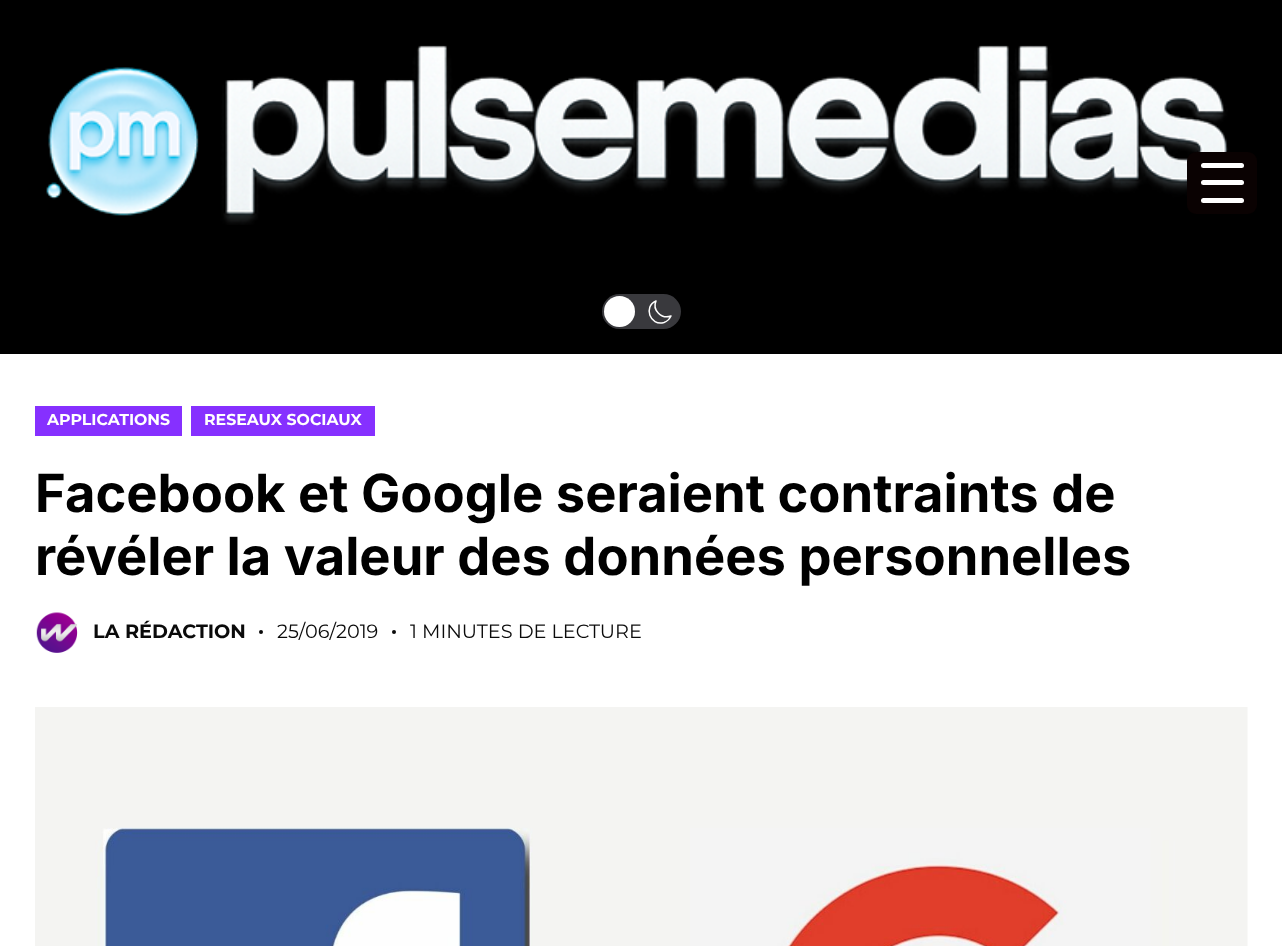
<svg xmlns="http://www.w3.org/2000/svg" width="1282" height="946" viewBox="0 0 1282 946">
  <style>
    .t1 { font: bold 15.75px Montserrat; fill: #fff; }
    .t2 { font: bold 52.5px Inter; fill: #000; }
    .t3 { font: bold 19.25px Montserrat; fill: #0a0a0a; }
    .t4 { font: 19.25px Montserrat; fill: #0a0a0a; }
  </style>
  <rect width="100%" height="100%" fill="#fff"/>
  <rect x="0" y="0" width="1282" height="354" fill="#000"/>
  <image x="46" y="45" width="1182" height="180" href="images/1.png"/>
  <rect x="602" y="294" width="79" height="35" rx="17.5" fill="#39393d"/>
  <circle cx="619.5" cy="311.5" r="15.5" fill="#fff"/>
  <path d="M671 316C661.5 319.5 652 310 656 301C643 306.5 650 326.5 664 322.5C667 321.5 669.5 319 671 316Z" fill="none" stroke="#fff" stroke-width="1.5" stroke-linecap="round" stroke-linejoin="round"/>
  <rect x="1187" y="152" width="70" height="62" rx="9" fill="#0a0202"/>
  <rect x="1201" y="180" width="43" height="5" rx="2.5" fill="#fff"/>
  <rect x="1201" y="163" width="43" height="5" rx="2.5" fill="#fff"/>
  <rect x="1201" y="198" width="43" height="5" rx="2.5" fill="#fff"/>
  <rect x="35" y="406" width="147" height="30" fill="#8630ff"/>
  <text x="47" y="425" class="t1">APPLICATIONS</text>
  <rect x="191" y="406" width="184" height="30" fill="#8630ff"/>
  <text x="204" y="425" class="t1">RESEAUX SOCIAUX</text>
  <text x="35" y="512" class="t2">Facebook et Google seraient contraints de</text>
  <text x="35" y="575" class="t2">révéler la valeur des données personnelles</text>
  <image x="36" y="612" width="42" height="41" href="images/2.png"/>
  <text x="93" y="638" class="t3">LA RÉDACTION</text>
  <circle cx="261" cy="632" r="2" fill="#0a0a0a"/>
  <text x="277" y="638" class="t4">25/06/2019</text>
  <circle cx="394" cy="632" r="2" fill="#0a0a0a"/>
  <text x="410" y="638" class="t4">1 MINUTES DE LECTURE</text>
  <image x="35" y="707" width="1213" height="239" href="images/3.png"/>
</svg>
